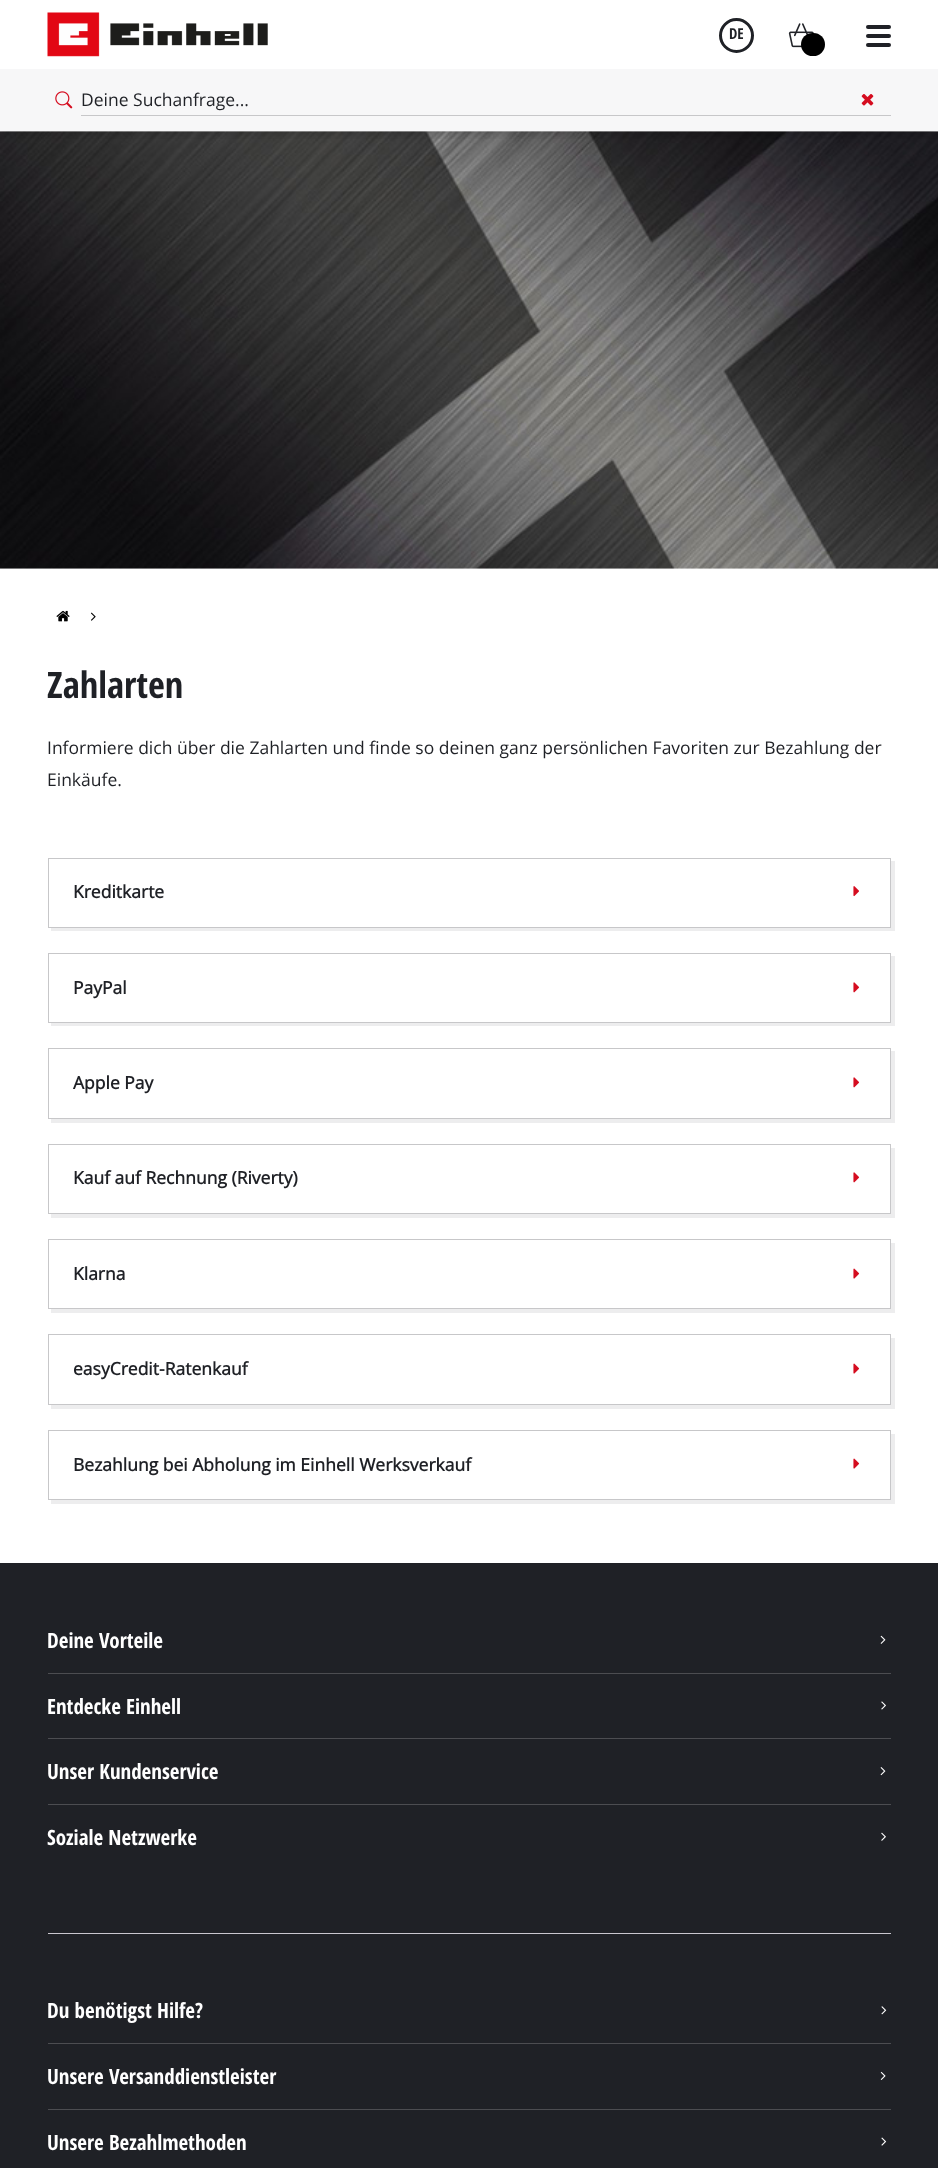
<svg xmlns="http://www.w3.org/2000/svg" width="938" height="2168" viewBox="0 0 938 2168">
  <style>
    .t1 { font: bold 15px Open Sans Condensed; fill: #1f2126; }
    .t2 { font: 17.5px Open Sans; fill: #1f2126; }
    .t3 { font: bold 36.5px Open Sans Condensed; fill: #1f2126; }
    .t4 { font: bold 17.5px Open Sans; fill: #1f2126; }
    .t5 { font: bold 21px Open Sans Condensed; fill: #fff; }
  </style>
  <defs>
    <clipPath id="clip1"><rect x="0" y="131" width="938" height="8"/></clipPath>
  </defs>
  <rect width="100%" height="100%" fill="#fff"/>
  <image x="0" y="131" width="938" height="438" href="images/5.png"/>
  <g clip-path="url(#clip1)">
    <rect x="0" y="0" width="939" height="131" fill="#00000040" filter="blur(6px)"/>
  </g>
  <image x="47" y="12" width="221" height="45" href="images/1.png"/>
  <circle cx="736.5" cy="35.5" r="16" fill="none" stroke="#1f2126" stroke-width="3"/>
  <text x="729" y="39" class="t1">DE</text>
  <image x="788" y="23" width="26" height="25" href="images/2.png"/>
  <rect x="801" y="33" width="24" height="23" rx="11.5" fill="#000"/>
  <rect x="866" y="25" width="25" height="4" rx="2" fill="#1f2126"/>
  <rect x="866" y="34" width="25" height="4" rx="2" fill="#1f2126"/>
  <rect x="866" y="43" width="25" height="4" rx="2" fill="#1f2126"/>
  <rect x="0" y="69" width="938" height="62" fill="#f7f7f8"/>
  <image x="55" y="91" width="18" height="18" href="images/3.png"/>
  <rect x="81" y="115" width="810" height="1" fill="#c7c7c9"/>
  <text x="81" y="106" class="t2">Deine Suchanfrage...</text>
  <image x="861" y="94" width="13" height="12" href="images/4.png"/>
  <image x="56" y="610" width="14" height="12" href="images/6.png"/>
  <image x="91" y="612" width="5" height="9" href="images/7.png"/>
  <text x="47" y="698" class="t3">Zahlarten</text>
  <text x="47" y="754" class="t2">Informiere dich über die Zahlarten und finde so deinen ganz persönlichen Favoriten zur Bezahlung der</text>
  <text x="47" y="786" class="t2">Einkäufe.</text>
  <path d="M51 928V931H895V861H891V928Z" fill="#ededee"/>
  <rect x="48.5" y="858.5" width="842" height="69" fill="none" stroke="#c7c7c9"/>
  <text x="73" y="898" class="t4">Kreditkarte</text>
  <image x="853" y="886" width="6" height="11" href="images/8.png"/>
  <path d="M51 1022V1026H895V956H891V1022Z" fill="#ededee"/>
  <rect x="48.5" y="953.5" width="842" height="69" fill="none" stroke="#c7c7c9"/>
  <text x="73" y="994" class="t4">PayPal</text>
  <image x="853" y="982" width="7" height="11" href="images/9.png"/>
  <path d="M51 1119V1123H895V1051H891V1119Z" fill="#ededee"/>
  <rect x="48.5" y="1048.5" width="842" height="70" fill="none" stroke="#c7c7c9"/>
  <text x="73" y="1089" class="t4">Apple Pay</text>
  <image x="853" y="1077" width="7" height="11" href="images/9.png"/>
  <path d="M51 1214V1218H895V1148H891V1214Z" fill="#ededee"/>
  <rect x="48.5" y="1144.5" width="842" height="69" fill="none" stroke="#c7c7c9"/>
  <text x="73" y="1184" class="t4">Kauf auf Rechnung (Riverty)</text>
  <image x="853" y="1172" width="7" height="11" href="images/9.png"/>
  <path d="M51 1309V1313H895V1243H891V1309Z" fill="#ededee"/>
  <rect x="48.5" y="1239.5" width="842" height="69" fill="none" stroke="#c7c7c9"/>
  <text x="73" y="1280" class="t4">Klarna</text>
  <image x="853" y="1268" width="7" height="11" href="images/10.png"/>
  <path d="M51 1405V1409H895V1338H891V1405Z" fill="#ededee"/>
  <rect x="48.5" y="1334.5" width="842" height="70" fill="none" stroke="#c7c7c9"/>
  <text x="73" y="1375" class="t4">easyCredit-Ratenkauf</text>
  <image x="853" y="1363" width="7" height="11" href="images/10.png"/>
  <path d="M51 1500V1504H895V1434H891V1500Z" fill="#ededee"/>
  <rect x="48.5" y="1430.5" width="842" height="69" fill="none" stroke="#c7c7c9"/>
  <text x="73" y="1471" class="t4">Bezahlung bei Abholung im Einhell Werksverkauf</text>
  <image x="853" y="1458" width="7" height="11" href="images/10.png"/>
  <rect x="0" y="1563" width="938" height="605" fill="#1f2126"/>
  <rect x="48" y="1673" width="843" height="1" fill="#4c4d51"/>
  <text x="47" y="1648" class="t5">Deine Vorteile</text>
  <image x="880" y="1635" width="6" height="9" href="images/11.png"/>
  <rect x="48" y="1738" width="843" height="1" fill="#4c4d51"/>
  <text x="47" y="1714" class="t5">Entdecke Einhell</text>
  <image x="881" y="1701" width="5" height="9" href="images/12.png"/>
  <rect x="48" y="1804" width="843" height="1" fill="#4c4d51"/>
  <text x="47" y="1779" class="t5">Unser Kundenservice</text>
  <image x="880" y="1767" width="6" height="9" href="images/13.png"/>
  <text x="47" y="1845" class="t5">Soziale Netzwerke</text>
  <image x="881" y="1832" width="5" height="9" href="images/14.png"/>
  <rect x="48" y="1933" width="843" height="1" fill="#c9c7ce"/>
  <rect x="48" y="2043" width="843" height="1" fill="#4c4d51"/>
  <text x="47" y="2018" class="t5">Du benötigst Hilfe?</text>
  <image x="881" y="2006" width="6" height="9" href="images/15.png"/>
  <rect x="48" y="2109" width="843" height="1" fill="#4c4d51"/>
  <text x="47" y="2084" class="t5">Unsere Versanddienstleister</text>
  <image x="880" y="2071" width="6" height="9" href="images/16.png"/>
  <text x="47" y="2150" class="t5">Unsere Bezahlmethoden</text>
  <image x="881" y="2137" width="6" height="9" href="images/17.png"/>
</svg>
